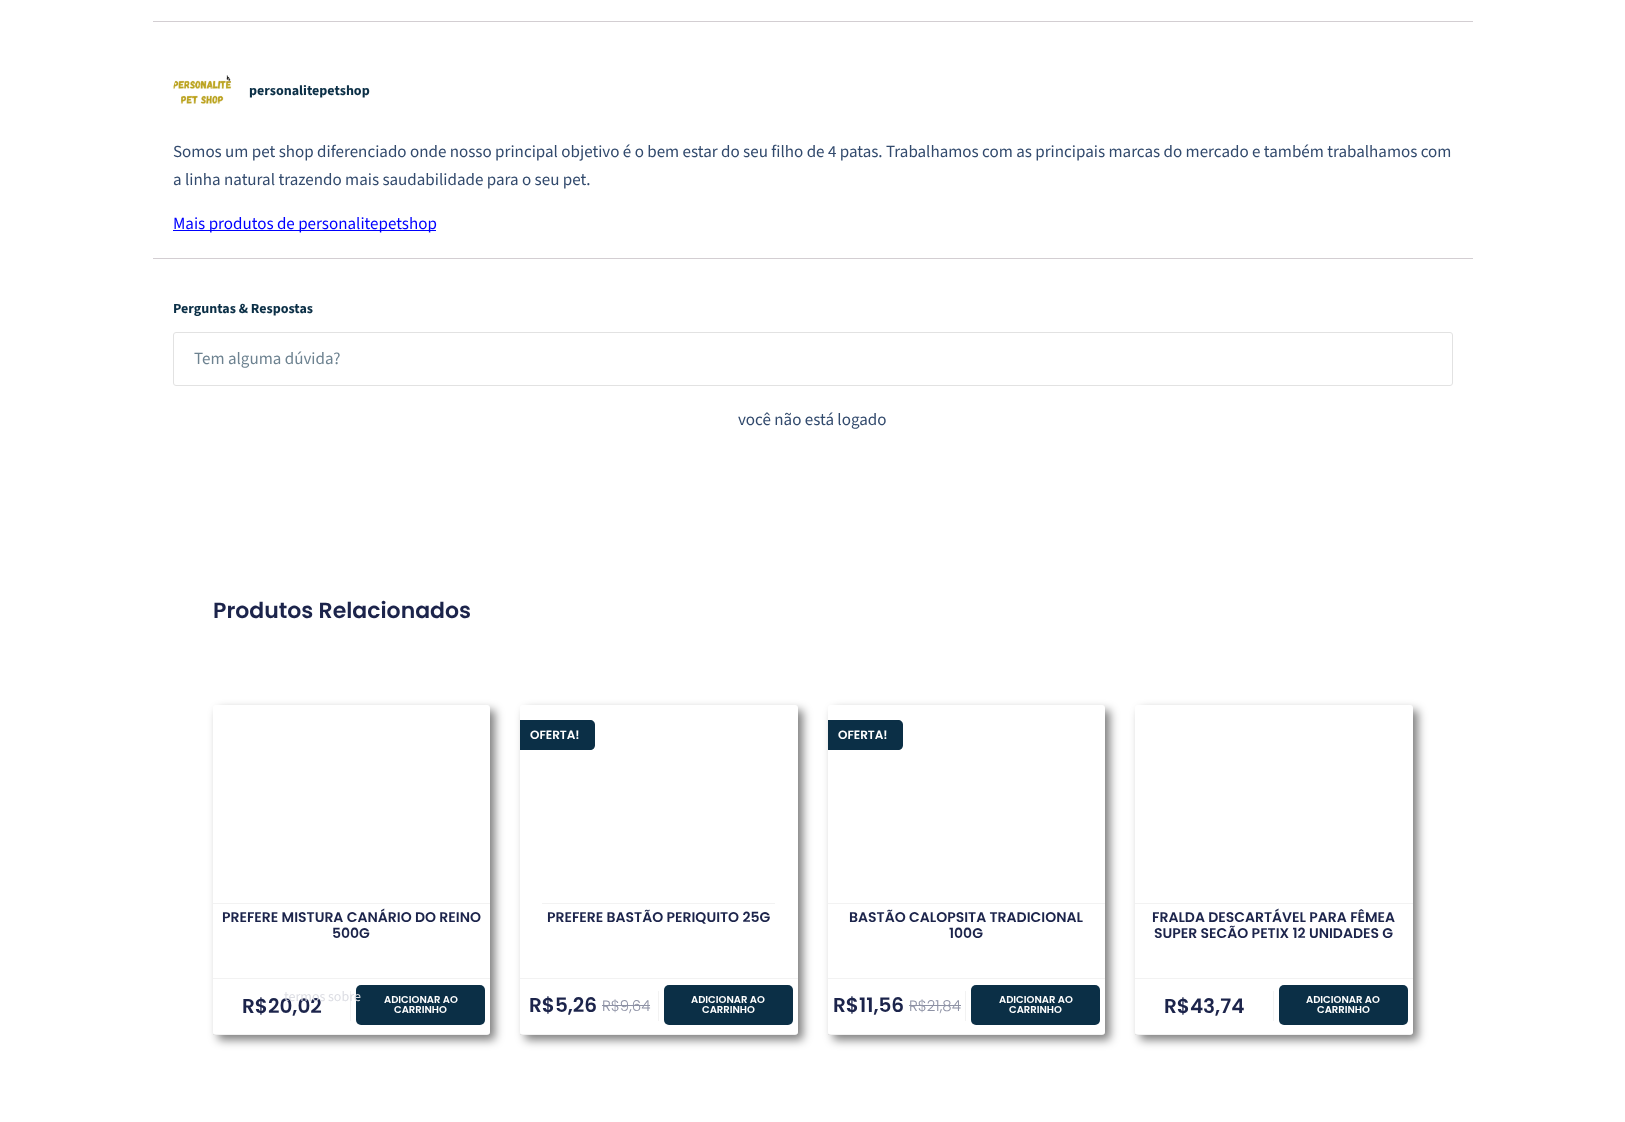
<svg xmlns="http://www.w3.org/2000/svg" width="1625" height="1122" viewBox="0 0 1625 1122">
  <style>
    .t1 { font: bold 14px 'Source Sans 3'; fill: #0b2f46; }
    .t2 { font: 17px 'Source Sans 3'; fill: #324a6d; }
    .t3 { font: 17px 'Source Sans 3'; fill: #00f; }
    .t4 { font: 17px 'Source Sans 3'; fill: #6d8290; }
    .t5 { font: 600 22px Poppins; fill: #1c244b; }
    .t6 { font: 600 14px Poppins; fill: #1c244b; }
    .t7 { font: 600 20px Poppins; fill: #1c244b; }
    .t8 { font: 600 10px Poppins; fill: #fff; }
    .t9 { font: 600 12px Poppins; fill: #fff; }
    .t10 { font: 300 15px Poppins; fill: #8e92a5; }
    .t11 { font: 14px 'Source Sans 3'; fill: #dddee4; }
  </style>
  <rect width="100%" height="100%" fill="#fff"/>
  <rect x="153" y="21" width="1320" height="1" fill="#d3ced2"/>
  <image x="173" y="75" width="59" height="29" href="images/1.png"/>
  <text x="249" y="95" class="t1">personalitepetshop</text>
  <text x="173" y="157" class="t2">Somos um pet shop diferenciado onde nosso principal objetivo é o bem estar do seu filho de 4 patas. Trabalhamos com as principais marcas do mercado e também trabalhamos com</text>
  <text x="173" y="185" class="t2">a linha natural trazendo mais saudabilidade para o seu pet.</text>
  <rect x="173" y="230" width="263" height="1" fill="#00f"/>
  <text x="173" y="229" class="t3">Mais produtos de personalitepetshop</text>
  <rect x="153" y="258" width="1320" height="1" fill="#d3ced2"/>
  <text x="173" y="313" class="t1">Perguntas &amp; Respostas</text>
  <rect x="173.5" y="332.5" width="1279" height="53" rx="2.5" fill="none" stroke="#e2e2e2"/>
  <text x="194" y="364" class="t4">Tem alguma dúvida?</text>
  <text x="738" y="425" class="t2">você não está logado</text>
  <text x="213" y="618" class="t5">Produtos Relacionados</text>
  <rect x="218" y="710" width="277" height="330" rx="3" fill="#00000080" filter="blur(5px)"/>
  <rect x="213" y="705" width="277" height="330" rx="3" fill="#fff"/>
  <rect x="213" y="903" width="277" height="1" fill="#f2f2f2"/>
  <text x="222" y="922" class="t6">PREFERE MISTURA CANÁRIO DO REINO</text>
  <text x="332" y="938" class="t6">500G</text>
  <rect x="213" y="978" width="277" height="1" fill="#f2f2f2"/>
  <rect x="213" y="1034" width="277" height="1" fill="#0000000d"/>
  <text x="242" y="1013" class="t7">R$20,02</text>
  <rect x="350" y="991" width="1" height="30" fill="#f2f2f2"/>
  <rect x="356" y="985" width="129" height="40" rx="5" fill="#0b2f46"/>
  <text x="384" y="1003" class="t8">ADICIONAR AO</text>
  <text x="394" y="1013" class="t8">CARRINHO</text>
  <rect x="525" y="710" width="278" height="330" rx="3" fill="#00000080" filter="blur(5px)"/>
  <rect x="520" y="705" width="278" height="330" rx="3" fill="#fff"/>
  <path d="M520 720H590C593 720 595 722 595 725V745C595 748 593 750 590 750H520Z" fill="#0b2f46"/>
  <text x="530" y="739" class="t9">OFERTA!</text>
  <rect x="542" y="903" width="233" height="1" fill="#f2f2f2"/>
  <text x="547" y="922" class="t6">PREFERE BASTÃO PERIQUITO 25G</text>
  <rect x="520" y="978" width="278" height="1" fill="#f2f2f2"/>
  <rect x="520" y="1034" width="278" height="1" fill="#0000000d"/>
  <text x="529" y="1012" class="t7">R$5,26</text>
  <text x="602" y="1011" class="t10">R$9,64</text>
  <rect x="602" y="1005" width="48" height="1" fill="#8e92a5"/>
  <rect x="658" y="991" width="1" height="30" fill="#f2f2f2"/>
  <rect x="664" y="985" width="129" height="40" rx="5" fill="#0b2f46"/>
  <text x="691" y="1003" class="t8">ADICIONAR AO</text>
  <text x="702" y="1013" class="t8">CARRINHO</text>
  <rect x="833" y="710" width="277" height="330" rx="3" fill="#00000080" filter="blur(5px)"/>
  <rect x="828" y="705" width="277" height="330" rx="3" fill="#fff"/>
  <path d="M828 720H898C901 720 903 722 903 725V745C903 748 901 750 898 750H828Z" fill="#0b2f46"/>
  <text x="838" y="739" class="t9">OFERTA!</text>
  <rect x="828" y="903" width="277" height="1" fill="#f2f2f2"/>
  <text x="849" y="922" class="t6">BASTÃO CALOPSITA TRADICIONAL</text>
  <text x="949" y="938" class="t6">100G</text>
  <rect x="828" y="978" width="277" height="1" fill="#f2f2f2"/>
  <rect x="828" y="1034" width="277" height="1" fill="#0000000d"/>
  <text x="833" y="1012" class="t7">R$11,56</text>
  <text x="909" y="1011" class="t10">R$21,84</text>
  <rect x="909" y="1005" width="52" height="1" fill="#8e92a5"/>
  <rect x="965" y="991" width="1" height="30" fill="#f2f2f2"/>
  <rect x="971" y="985" width="129" height="40" rx="5" fill="#0b2f46"/>
  <text x="999" y="1003" class="t8">ADICIONAR AO</text>
  <text x="1009" y="1013" class="t8">CARRINHO</text>
  <rect x="1140" y="710" width="278" height="330" rx="3" fill="#00000080" filter="blur(5px)"/>
  <rect x="1135" y="705" width="278" height="330" rx="3" fill="#fff"/>
  <rect x="1135" y="903" width="278" height="1" fill="#f2f2f2"/>
  <text x="1152" y="922" class="t6">FRALDA DESCARTÁVEL PARA FÊMEA</text>
  <text x="1154" y="938" class="t6">SUPER SECÃO PETIX 12 UNIDADES G</text>
  <rect x="1135" y="978" width="278" height="1" fill="#f2f2f2"/>
  <rect x="1135" y="1034" width="278" height="1" fill="#0000000d"/>
  <text x="1164" y="1013" class="t7">R$43,74</text>
  <rect x="1273" y="991" width="1" height="30" fill="#f2f2f2"/>
  <rect x="1279" y="985" width="129" height="40" rx="5" fill="#0b2f46"/>
  <text x="1306" y="1003" class="t8">ADICIONAR AO</text>
  <text x="1317" y="1013" class="t8">CARRINHO</text>
  <text x="284" y="1001" class="t11">termos</text>
  <text x="328" y="1001" class="t11">sobre</text>
</svg>
